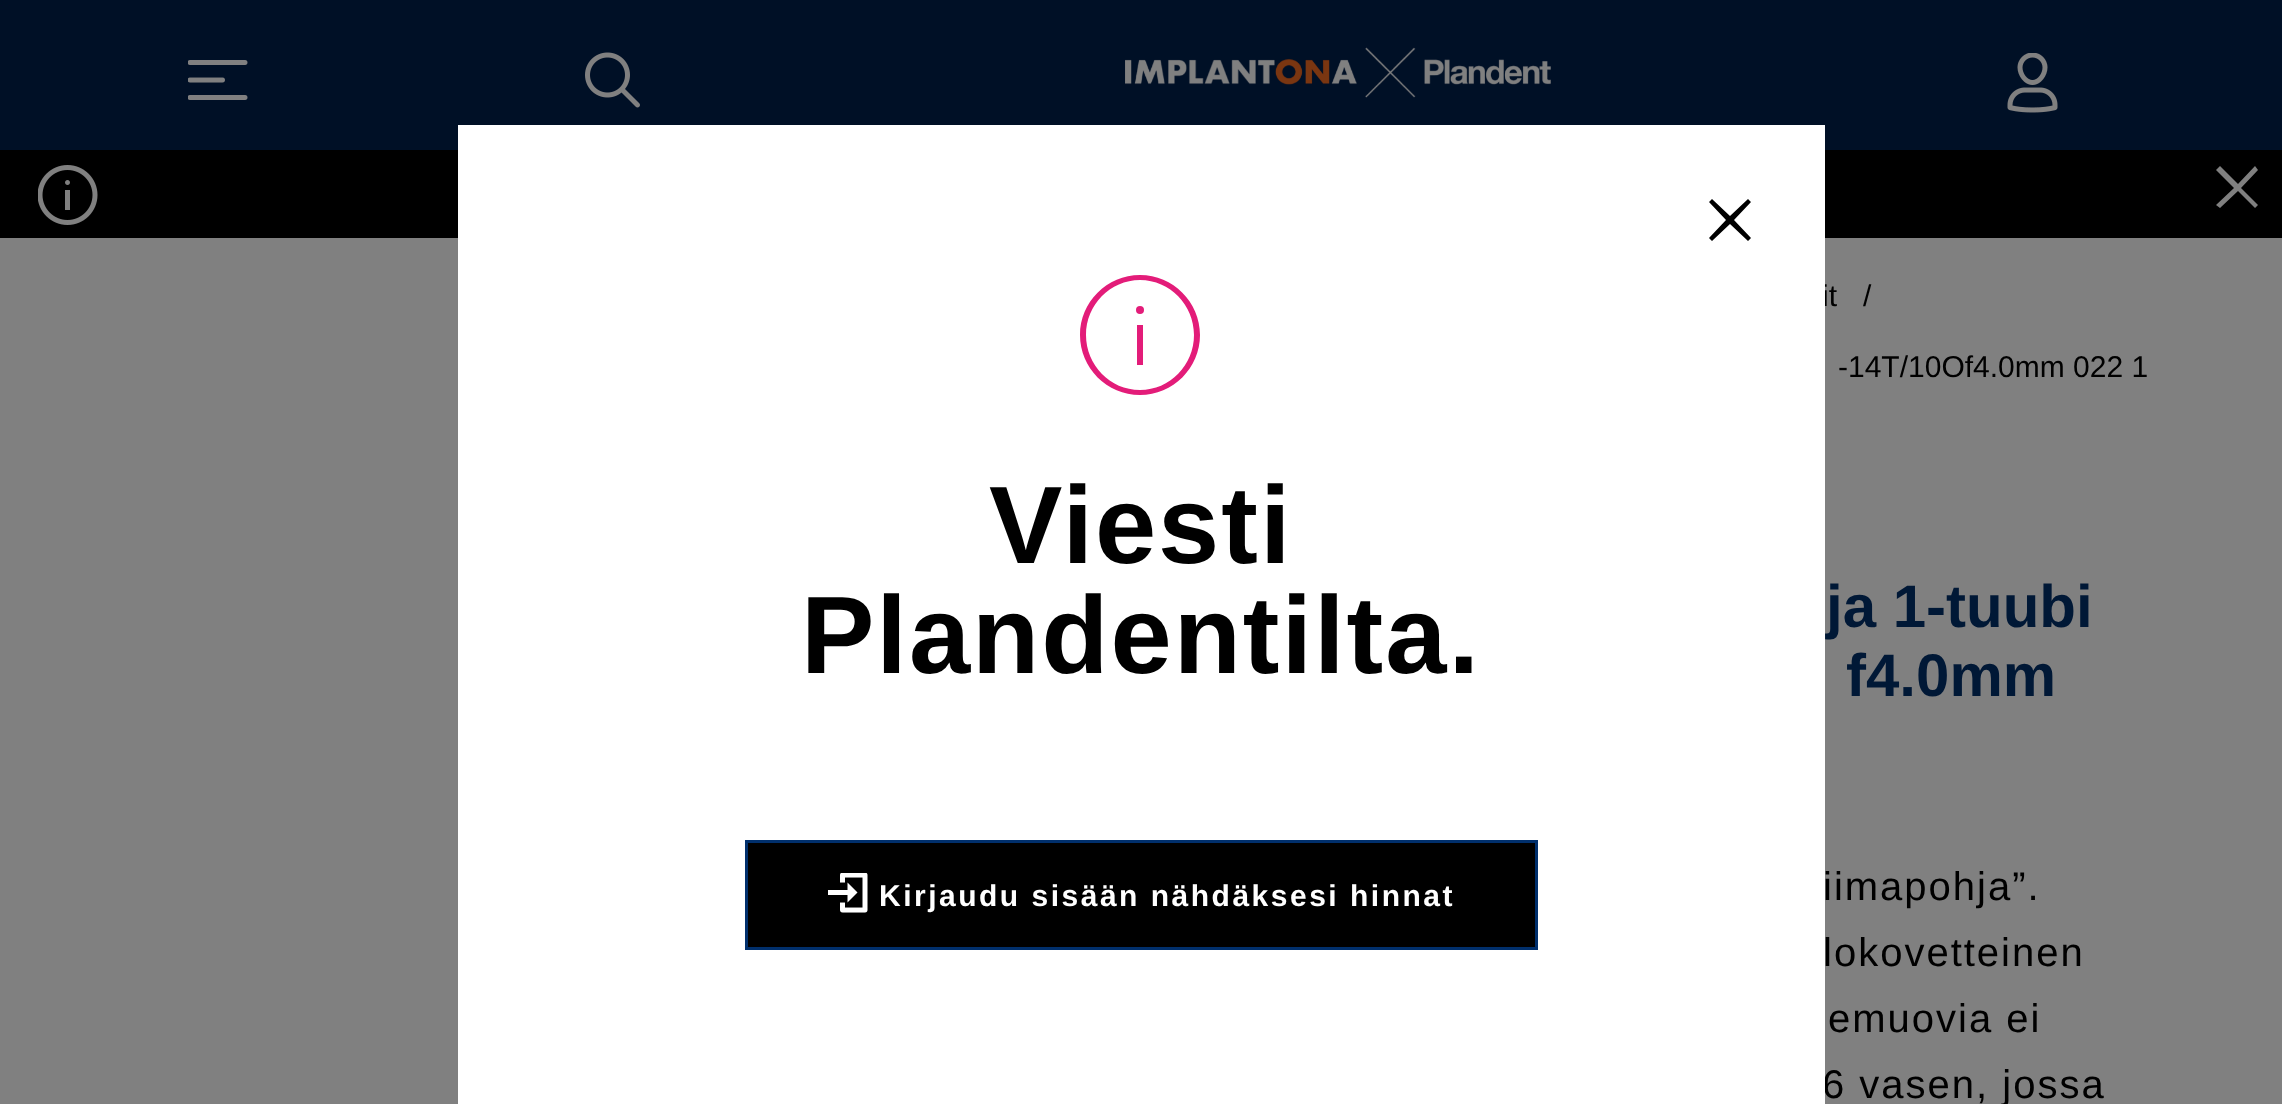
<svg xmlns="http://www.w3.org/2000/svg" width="2282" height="1104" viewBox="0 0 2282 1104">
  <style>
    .t1 { font: 30px Liberation Sans; fill: #000; }
    .t2 { font: bold 60px Liberation Sans; fill: #001836; }
    .t3 { font: 40px Liberation Sans; letter-spacing: 2px; fill: #000; }
    .t4 { font: bold 110px Liberation Sans; letter-spacing: 2px; fill: #000; }
    .t5 { font: bold 30px Liberation Sans; letter-spacing: 2.5px; fill: #fff; }
  </style>
  <rect width="100%" height="100%" fill="#808080"/>
  <rect x="0" y="0" width="2282" height="150" fill="#001026"/>
  <image x="188" y="60" width="60" height="40" href="images/1.png"/>
  <image x="585" y="52" width="55" height="56" href="images/2.png"/>
  <image x="1125" y="47" width="426" height="51" href="images/3.png"/>
  <image x="2007" y="53" width="51" height="60" href="images/4.png"/>
  <rect x="0" y="150" width="2282" height="88" fill="#000"/>
  <image x="38" y="165" width="60" height="60" href="images/5.png"/>
  <path d="M2258 170L2255 166L2238 184L2220 166L2216 170L2234 188L2216 205L2220 208L2238 191L2255 208L2258 205L2241 188Z" fill="#808080"/>
  <text x="1822" y="306" class="t1">it</text>
  <text x="1826" y="627" class="t2">ja 1-tuubi</text>
  <text x="1822" y="1098" class="t3">6 vasen, jossa</text>
  <rect x="458" y="125" width="1367" height="979" fill="#fff"/>
  <path d="M1751 202L1748 199L1730 216L1712 199L1709 202L1726 220L1709 238L1712 241L1730 224L1748 241L1751 238L1734 220Z" fill="#000"/>
  <path d="M1140 395C1107 395 1080 368 1080 335C1080 302 1107 275 1140 275C1173 275 1200 302 1200 335C1200 368 1173 395 1140 395ZM1140 280C1110 280 1086 305 1086 335C1086 365 1110 390 1140 390C1170 390 1194 365 1194 335C1194 305 1170 280 1140 280Z" fill="#e31c79"/>
  <rect x="1137" y="325" width="6" height="40" fill="#e31c79"/>
  <circle cx="1140" cy="310" r="4" fill="#e31c79"/>
  <text x="989" y="563" class="t4">Viesti</text>
  <text x="801" y="673" class="t4">Plandentilta.</text>
  <rect x="746.5" y="841.5" width="790" height="107" fill="#000" stroke="#002f6c" stroke-width="3"/>
  <image x="828" y="873" width="40" height="40" href="images/6.png"/>
  <text x="879" y="906" class="t5">Kirjaudu sisään nähdäksesi hinnat</text>
  <text x="1863" y="306" class="t1">/</text>
  <text x="1838" y="377" class="t1">-14T/10Of4.0mm 022 1</text>
  <text x="1846" y="696" class="t2">f4.0mm</text>
  <text x="1823" y="900" class="t3">iimapohja”.</text>
  <text x="1823" y="966" class="t3">lokovetteinen</text>
  <text x="1828" y="1032" class="t3">emuovia ei</text>
</svg>
